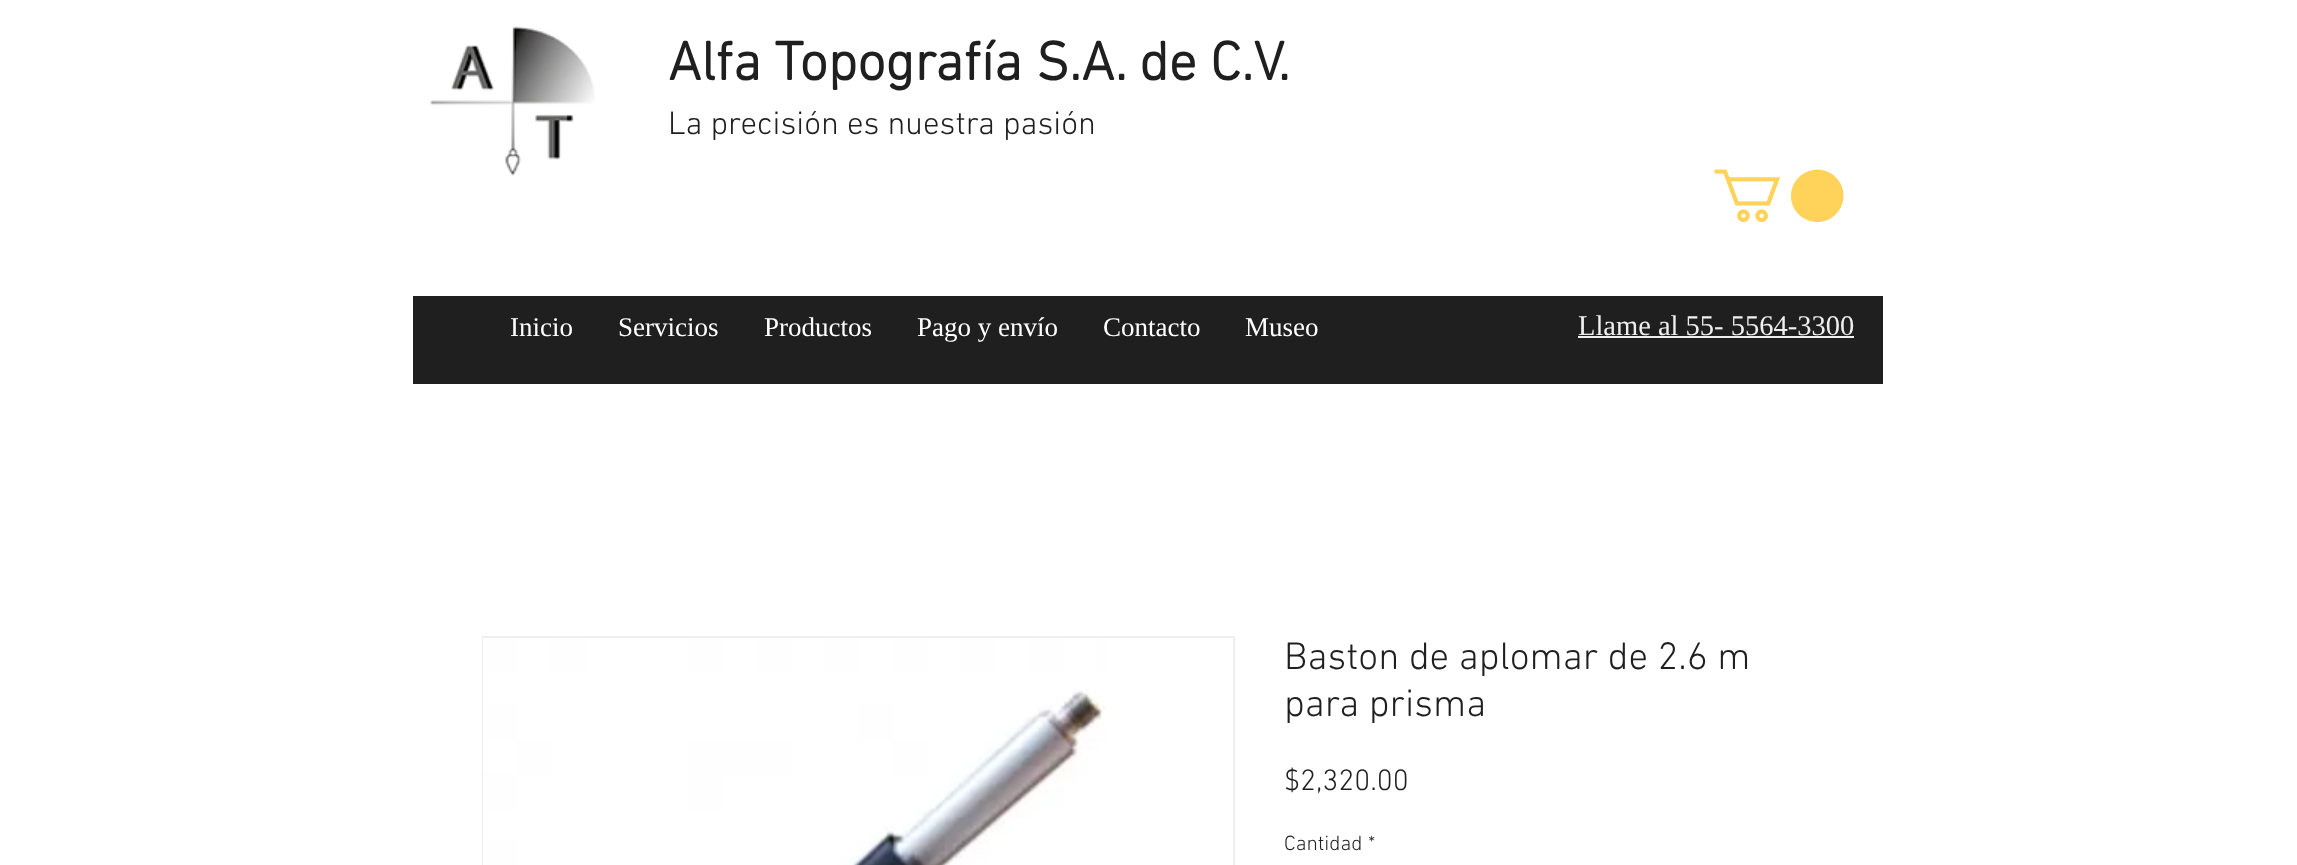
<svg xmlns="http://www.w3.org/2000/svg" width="2297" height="865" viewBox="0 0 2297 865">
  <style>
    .t1 { font: bold 55.5px 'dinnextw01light'; fill: #1f1f1f; }
    .t2 { font: 300 33px 'dinnextw01light'; fill: #1f1f1f; }
    .t3 { font: 27px Liberation Serif; fill: #fff; }
    .t4 { font: 28.5px Liberation Serif; fill: #eee; }
    .t5 { font: 300 39px 'dinnextw01light'; fill: #1f1f1f; }
    .t6 { font: 300 30px 'dinnextw01light'; fill: #1f1f1f; }
    .t7 { font: 300 21px 'dinnextw01light'; fill: #1f1f1f; }
  </style>
  <rect width="100%" height="100%" fill="#fff"/>
  <image x="430" y="26" width="165" height="150" href="images/1.png"/>
  <text x="668" y="80" class="t1">Alfa Topografía S.A. de C.V.</text>
  <text x="668" y="134" class="t2">La precisión es nuestra pasión</text>
  <image x="1714" y="169" width="130" height="54" href="images/2.png"/>
  <rect x="413" y="296" width="1470" height="88" fill="#1f1f1f"/>
  <text x="510" y="336" class="t3">Inicio</text>
  <text x="618" y="336" class="t3">Servicios</text>
  <text x="764" y="336" class="t3">Productos</text>
  <text x="917" y="336" class="t3">Pago y envío</text>
  <text x="1103" y="336" class="t3">Contacto</text>
  <text x="1245" y="336" class="t3">Museo</text>
  <text x="1578" y="335" class="t4">Llame al 55- 5564-3300</text>
  <rect x="1578" y="336" width="276" height="2" fill="#eee"/>
  <rect x="483" y="637" width="751" height="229" fill="none" stroke="#eee" stroke-width="2"/>
  <image x="483" y="638" width="624" height="227" href="images/3.png"/>
  <text x="1284" y="669" class="t5">Baston de aplomar de 2.6 m</text>
  <text x="1284" y="716" class="t5">para prisma</text>
  <text x="1284" y="790" class="t6">$2,320.00</text>
  <text x="1284" y="850" class="t7">Cantidad</text>
  <text x="1368" y="850" class="t7">*</text>
</svg>
